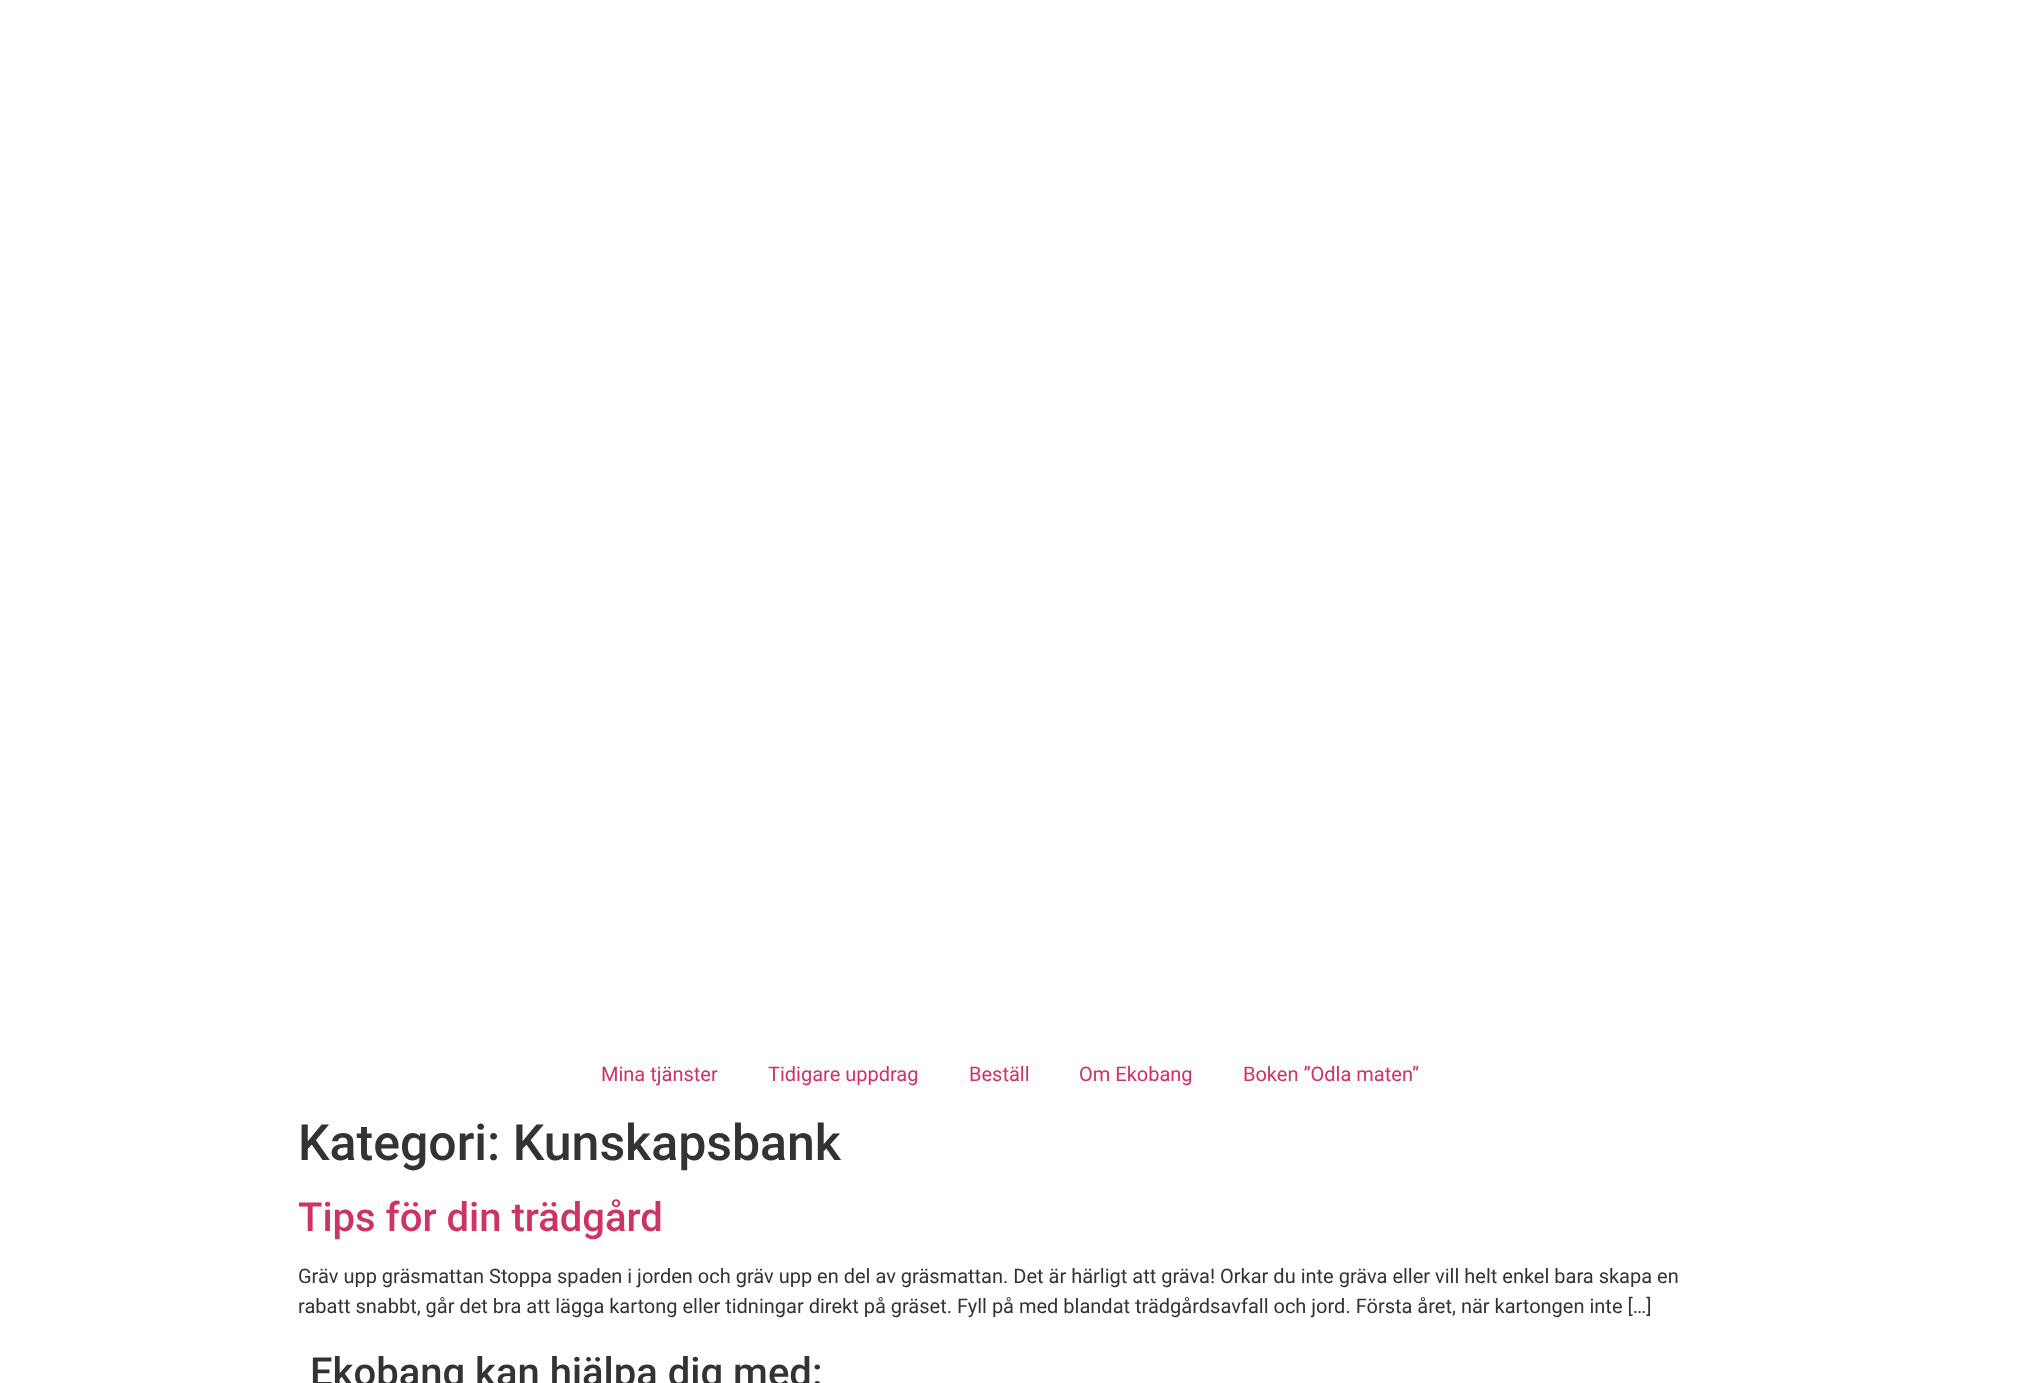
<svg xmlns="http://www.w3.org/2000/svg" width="2019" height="1383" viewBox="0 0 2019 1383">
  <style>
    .t1 { font: 20px Roboto; fill: #c36; }
    .t2 { font: 500 50px Roboto; fill: #333; }
    .t3 { font: 500 40px Roboto; fill: #c36; }
    .t4 { font: 20px Roboto; fill: #333; }
    .t5 { font: 500 40px Roboto; fill: #333; }
  </style>
  <rect width="100%" height="100%" fill="#fff"/>
  <text x="601" y="1081" class="t1">Mina tjänster</text>
  <text x="768" y="1081" class="t1">Tidigare uppdrag</text>
  <text x="969" y="1081" class="t1">Beställ</text>
  <text x="1079" y="1081" class="t1">Om Ekobang</text>
  <text x="1243" y="1081" class="t1">Boken ”Odla maten”</text>
  <text x="298" y="1160" class="t2">Kategori: Kunskapsbank</text>
  <text x="298" y="1231" class="t3">Tips för din trädgård</text>
  <text x="298" y="1283" class="t4">Gräv upp gräsmattan Stoppa spaden i jorden och gräv upp en del av gräsmattan. Det är härligt att gräva! Orkar du inte gräva eller vill helt enkel bara skapa en</text>
  <text x="298" y="1313" class="t4">rabatt snabbt, går det bra att lägga kartong eller tidningar direkt på gräset. Fyll på med blandat trädgårdsavfall och jord. Första året, när kartongen inte […]</text>
  <text x="310" y="1386" class="t5">Ekobang kan hjälpa dig med:</text>
</svg>
